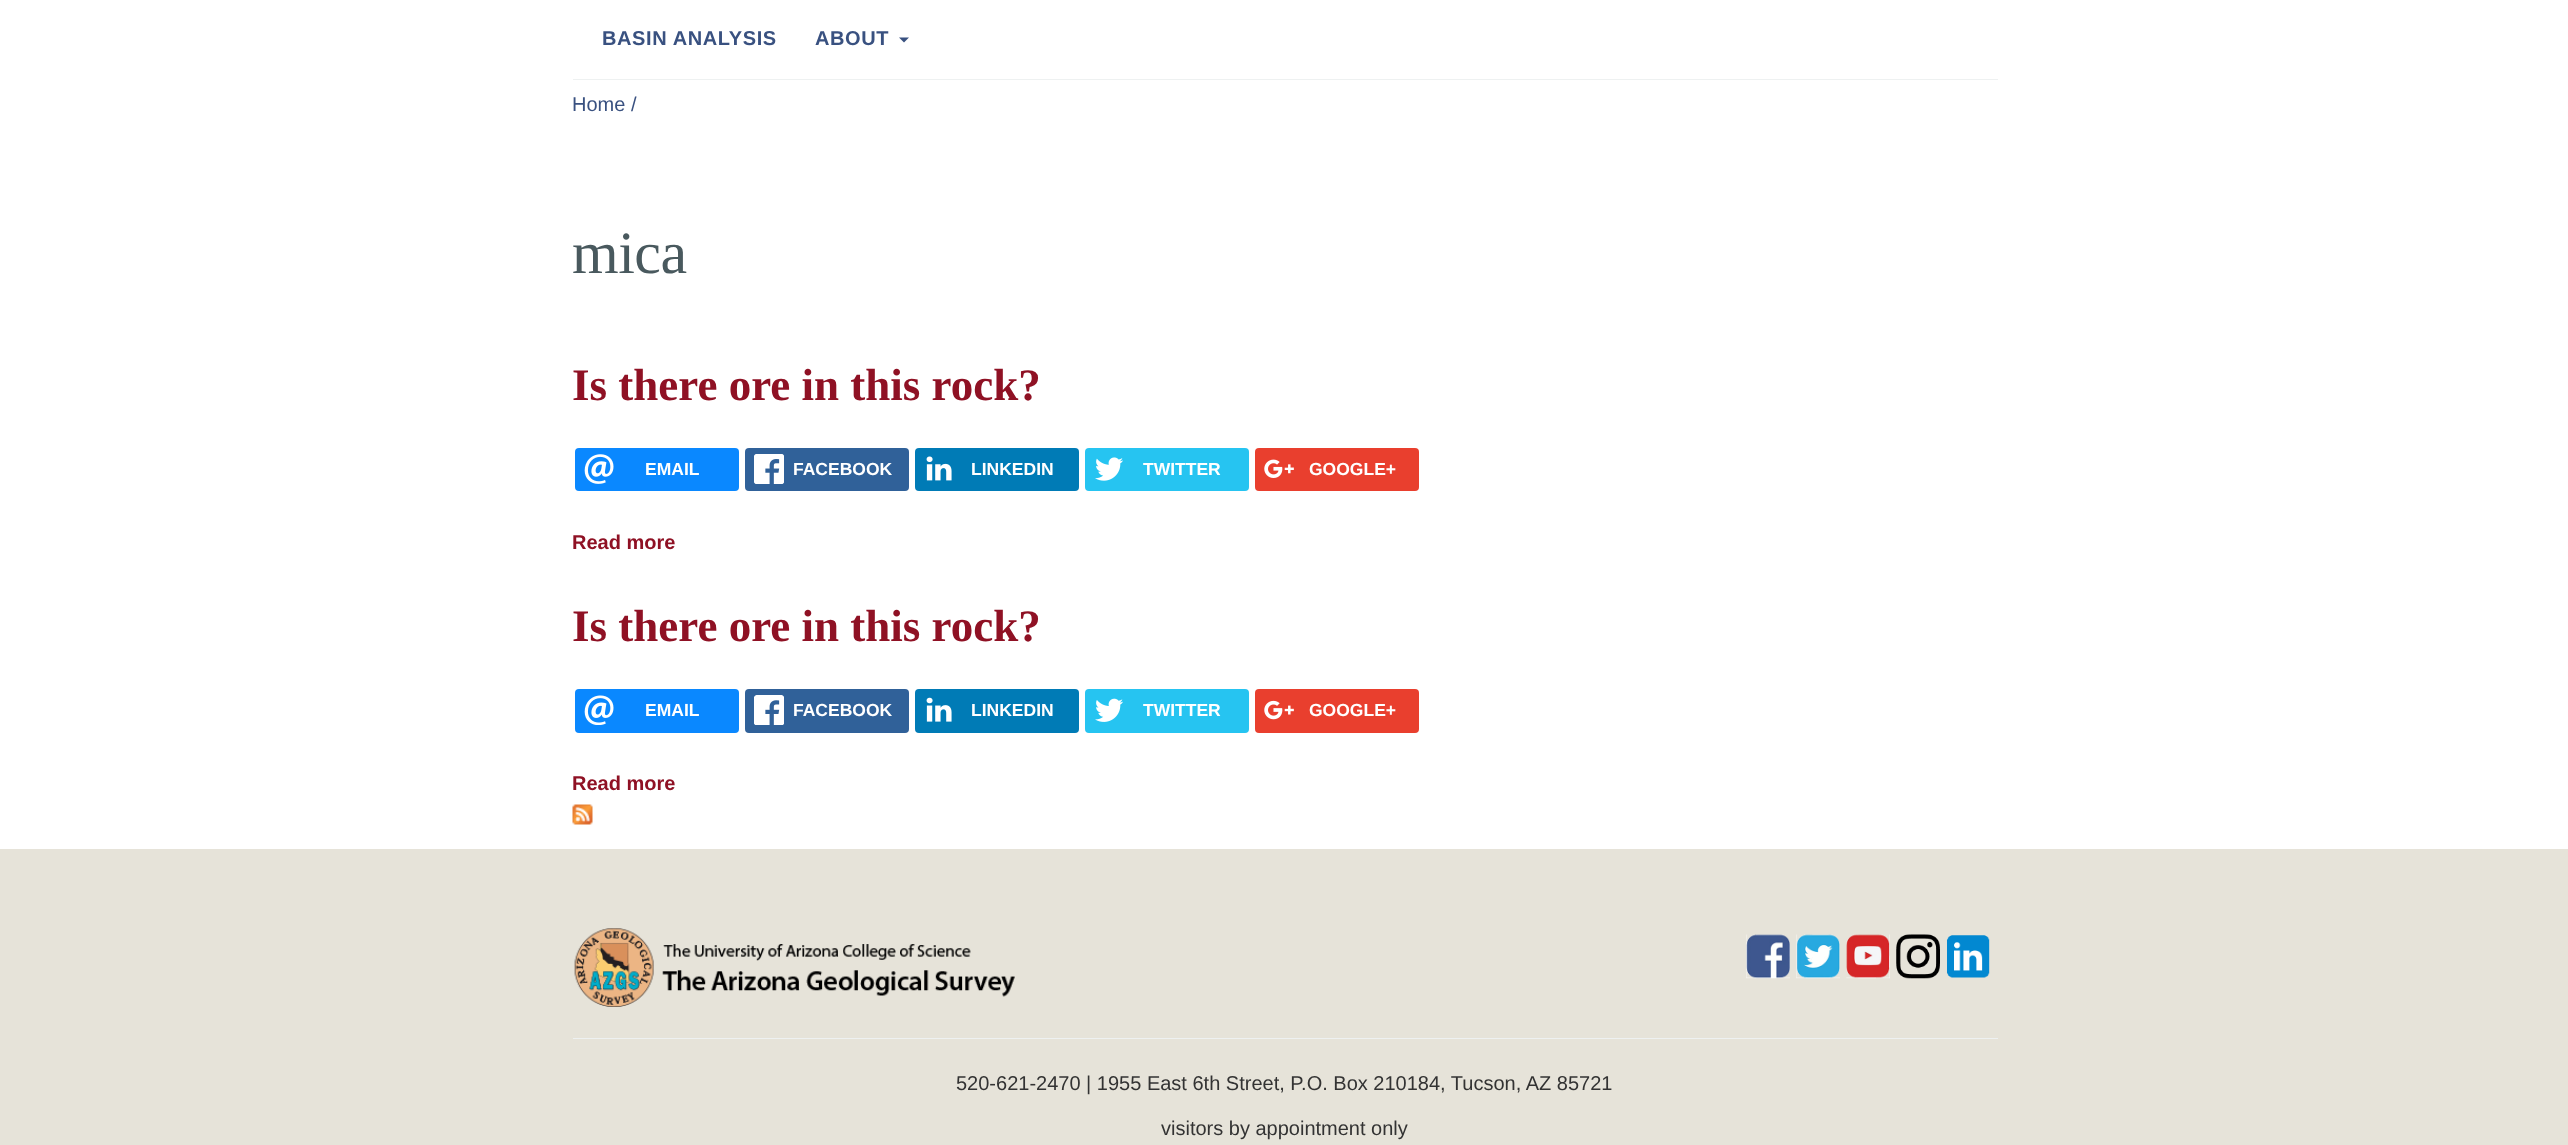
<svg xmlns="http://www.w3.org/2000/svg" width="2568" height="1145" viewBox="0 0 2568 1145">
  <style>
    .t1 { font: bold 20px Liberation Sans; letter-spacing: 0.6px; fill: #395180; }
    .t2 { font: 20px Liberation Sans; fill: #395180; }
    .t3 { font: 60px Liberation Serif; letter-spacing: -0.5px; fill: #49595e; }
    .t4 { font: bold 45px Liberation Serif; fill: #8f1124; }
    .t5 { font: bold 17.5px Liberation Sans; fill: #fff; }
    .t6 { font: bold 20px Liberation Sans; fill: #8f1124; }
    .t7 { font: 20px Liberation Sans; fill: #333; }
  </style>
  <rect width="100%" height="100%" fill="#fff"/>
  <rect x="573" y="79" width="1425" height="1" fill="#eef1f1"/>
  <text x="602" y="45" class="t1">BASIN ANALYSIS</text>
  <text x="815" y="45" class="t1">ABOUT</text>
  <path d="M899 37.5H909L904 42.5Z" fill="#395180"/>
  <text x="572" y="111" class="t2">Home</text>
  <text x="631" y="111" class="t2">/</text>
  <text x="572" y="273" class="t3">mica</text>
  <text x="572" y="400" class="t4">Is there ore in this rock?</text>
  <rect x="575" y="448" width="164" height="43" rx="4" fill="#0a88ff"/>
  <image x="584" y="454" width="30" height="30" href="images/1.png"/>
  <text x="645" y="475" class="t5">EMAIL</text>
  <rect x="745" y="448" width="164" height="43" rx="4" fill="#306199"/>
  <image x="754" y="454" width="30" height="30" href="images/2.png"/>
  <text x="793" y="475" class="t5">FACEBOOK</text>
  <rect x="915" y="448" width="164" height="43" rx="4" fill="#007bb6"/>
  <image x="926" y="456" width="26" height="25" href="images/3.png"/>
  <text x="971" y="475" class="t5">LINKEDIN</text>
  <rect x="1085" y="448" width="164" height="43" rx="4" fill="#26c4f1"/>
  <image x="1095" y="457" width="28" height="24" href="images/4.png"/>
  <text x="1143" y="475" class="t5">TWITTER</text>
  <rect x="1255" y="448" width="164" height="43" rx="4" fill="#e93f2e"/>
  <image x="1264" y="459" width="30" height="19" href="images/5.png"/>
  <text x="1309" y="475" class="t5">GOOGLE+</text>
  <text x="572" y="549" class="t6">Read more</text>
  <text x="572" y="641" class="t4">Is there ore in this rock?</text>
  <rect x="575" y="689" width="164" height="44" rx="4" fill="#0a88ff"/>
  <image x="584" y="695" width="30" height="30" href="images/6.png"/>
  <text x="645" y="716" class="t5">EMAIL</text>
  <rect x="745" y="689" width="164" height="44" rx="4" fill="#306199"/>
  <image x="754" y="695" width="30" height="30" href="images/7.png"/>
  <text x="793" y="716" class="t5">FACEBOOK</text>
  <rect x="915" y="689" width="164" height="44" rx="4" fill="#007bb6"/>
  <image x="926" y="697" width="26" height="25" href="images/8.png"/>
  <text x="971" y="716" class="t5">LINKEDIN</text>
  <rect x="1085" y="689" width="164" height="44" rx="4" fill="#26c4f1"/>
  <image x="1095" y="698" width="28" height="24" href="images/9.png"/>
  <text x="1143" y="716" class="t5">TWITTER</text>
  <rect x="1255" y="689" width="164" height="44" rx="4" fill="#e93f2e"/>
  <image x="1264" y="700" width="30" height="20" href="images/10.png"/>
  <text x="1309" y="716" class="t5">GOOGLE+</text>
  <text x="572" y="790" class="t6">Read more</text>
  <image x="572" y="804" width="21" height="21" href="images/11.png"/>
  <rect x="0" y="849" width="2568" height="296" fill="#e6e3d9"/>
  <image x="574" y="928" width="441" height="79" href="images/12.png"/>
  <image x="1746" y="934" width="44" height="45" href="images/13.png"/>
  <image x="1796" y="934" width="44" height="45" href="images/14.png"/>
  <image x="1846" y="934" width="44" height="45" href="images/15.png"/>
  <image x="1896" y="934" width="44" height="45" href="images/16.png"/>
  <image x="1947" y="935" width="43" height="43" href="images/17.png"/>
  <rect x="573" y="1038" width="1425" height="1" fill="#eef1f1"/>
  <text x="956" y="1090" class="t7">520-621-2470 | 1955 East 6th Street, P.O. Box 210184, Tucson, AZ 85721</text>
  <text x="1161" y="1135" class="t7">visitors by appointment only</text>
</svg>
